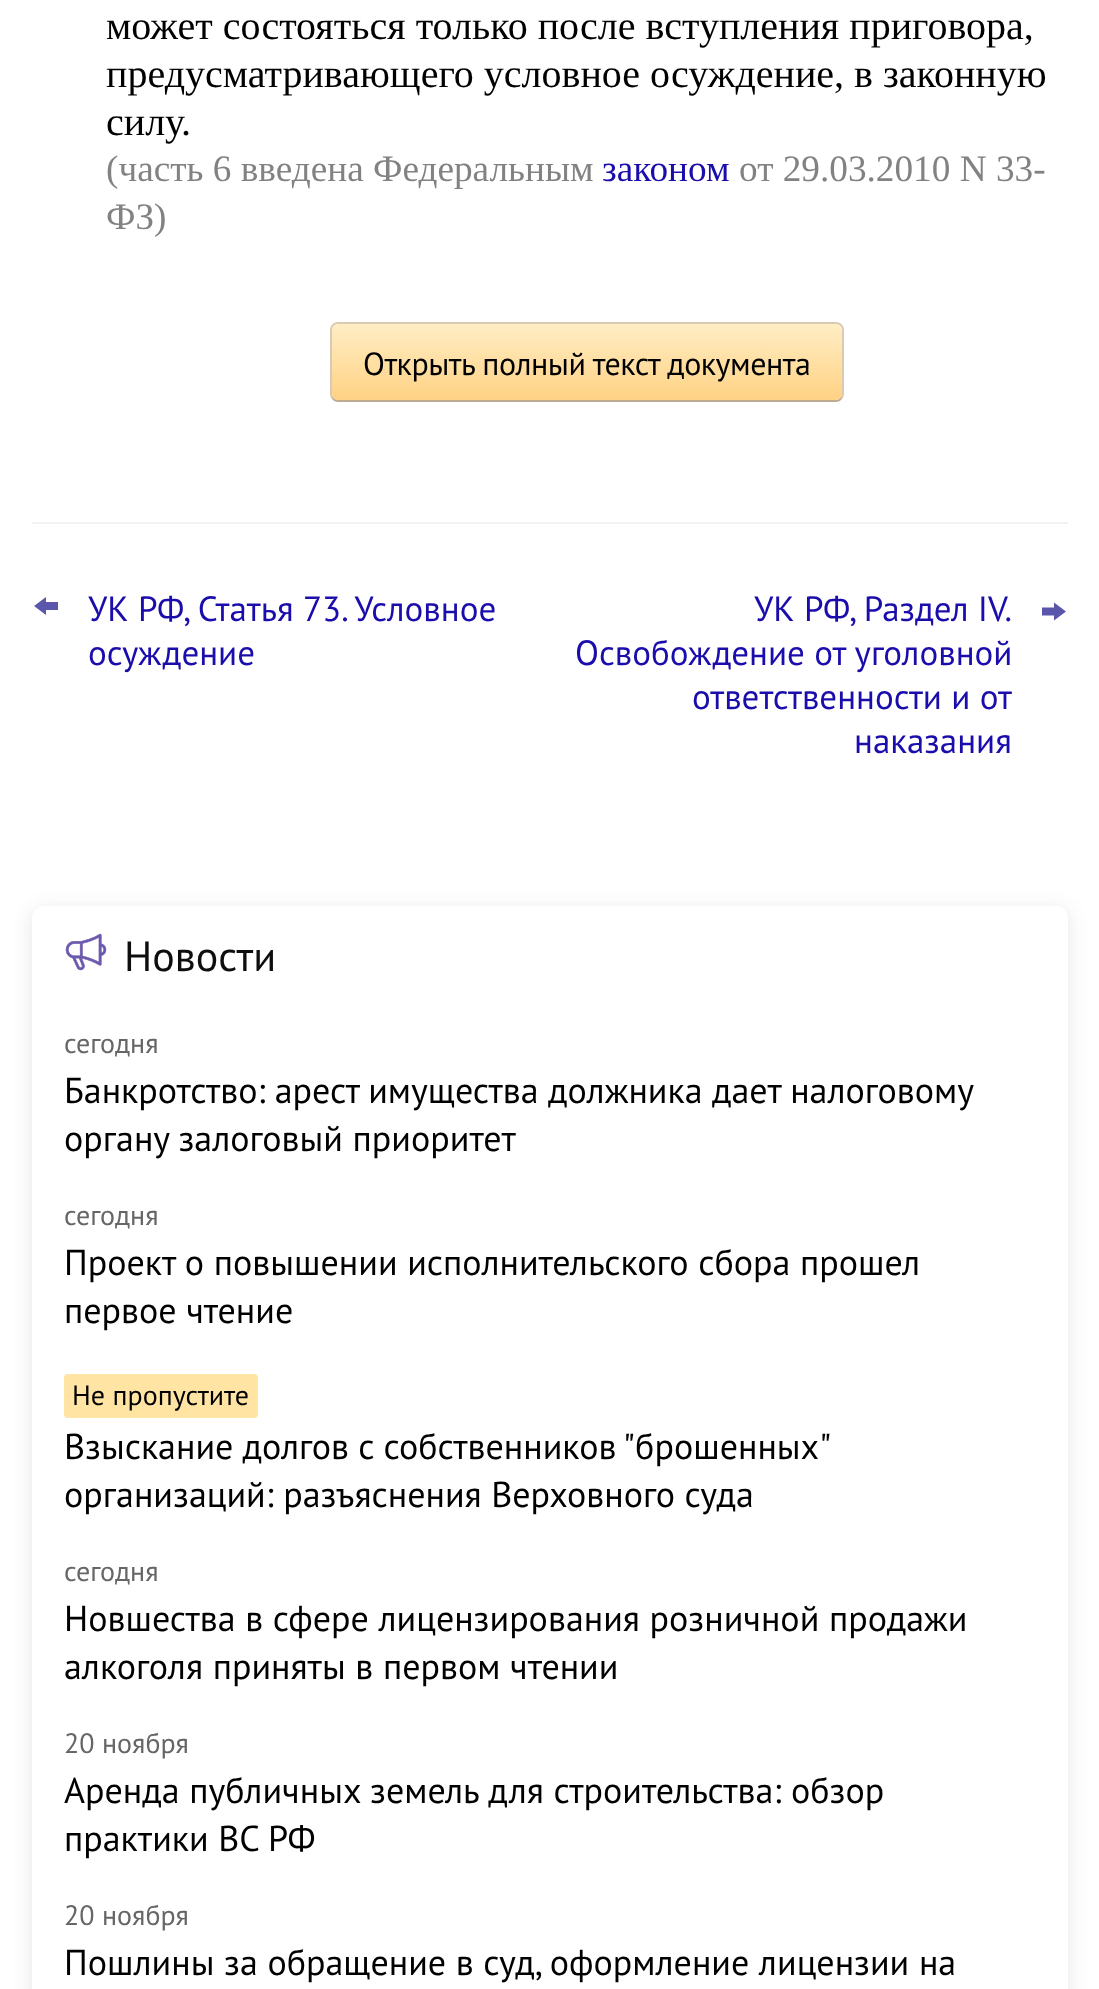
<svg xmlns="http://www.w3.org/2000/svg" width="1099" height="1989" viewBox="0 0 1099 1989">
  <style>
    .t1 { font: 40px Liberation Serif; fill: #000; }
    .t2 { font: 37.25px Liberation Serif; fill: #828282; }
    .t3 { font: 37.25px Liberation Serif; fill: #1a0dab; }
    .t4 { font: 32px PT Sans; letter-spacing: -0.5px; fill: #000; }
    .t5 { font: 35px PT Sans; fill: #1a0dab; }
    .t6 { font: 42px PT Sans; fill: #0e0e0e; }
    .t7 { font: 28px PT Sans; fill: #666; }
    .t8 { font: 36px PT Sans; fill: #000; }
    .t9 { font: 28px PT Sans; fill: #000; }
  </style>
  <defs>
    <linearGradient id="g1" gradientUnits="userSpaceOnUse" x1="587" y1="324" x2="587" y2="400"><stop offset="0" stop-color="#ffedc4"/><stop offset="0.97" stop-color="#ffd386"/></linearGradient>
  </defs>
  <rect width="100%" height="100%" fill="#fff"/>
  <text x="106" y="39" class="t1">может состояться только после вступления приговора,</text>
  <text x="106" y="87" class="t1">предусматривающего условное осуждение, в законную</text>
  <text x="106" y="135" class="t1">силу.</text>
  <text x="106" y="181" class="t2">(часть 6 введена Федеральным</text>
  <text x="602" y="181" class="t3">законом</text>
  <text x="739" y="181" class="t2">от 29.03.2010 N 33-</text>
  <text x="106" y="229" class="t2">ФЗ)</text>
  <rect x="331" y="323" width="512" height="78" rx="7" fill="none" stroke="#dacab3" stroke-width="2"/>
  <path d="M332 394C332 398 333 402 338 402H836C841 402 842 398 842 394C842 397 839 400 836 400H338C335 400 332 397 332 394Z" fill="#49310c33"/>
  <rect x="332" y="324" width="510" height="76" rx="6" fill="url(#g1)"/>
  <text x="363" y="375" class="t4">Открыть полный текст документа</text>
  <rect x="32" y="522" width="1036" height="2" fill="#f2f2f2"/>
  <path d="M58 610H46V602H58ZM46 615V597L34 606Z" fill="#5a56ab" fill-rule="evenodd"/>
  <text x="88" y="621" class="t5">УК РФ, Статья 73. Условное</text>
  <text x="88" y="665" class="t5">осуждение</text>
  <text x="754" y="621" class="t5">УК РФ, Раздел IV.</text>
  <path d="M1042 607.5H1054V615.5H1042ZM1054 602.5V620.5L1066 611.5Z" fill="#5a56ab" fill-rule="evenodd"/>
  <text x="575" y="665" class="t5">Освобождение от уголовной</text>
  <text x="692" y="709" class="t5">ответственности и от</text>
  <text x="854" y="753" class="t5">наказания</text>
  <rect x="32" y="910" width="1036" height="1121" rx="12" fill="#28272a1f" filter="blur(10px)"/>
  <rect x="32" y="906" width="1036" height="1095" rx="12" fill="#fff"/>
  <image x="65" y="933" width="42" height="38" href="images/1.png"/>
  <text x="124" y="971" class="t6">Новости</text>
  <text x="64" y="1053" class="t7">сегодня</text>
  <text x="64" y="1103" word-spacing="-0.25" class="t8">Банкротство: арест имущества должника дает налоговому</text>
  <text x="64" y="1151" class="t8">органу залоговый приоритет</text>
  <text x="64" y="1225" class="t7">сегодня</text>
  <text x="64" y="1275" class="t8">Проект о повышении исполнительского сбора прошел</text>
  <text x="64" y="1323" class="t8">первое чтение</text>
  <rect x="64" y="1374" width="194" height="44" rx="4" fill="#ffe4a3"/>
  <text x="72" y="1405" class="t9">Не пропустите</text>
  <text x="64" y="1459" word-spacing="-0.5" class="t8">Взыскание долгов с собственников "брошенных"</text>
  <text x="64" y="1507" class="t8">организаций: разъяснения Верховного суда</text>
  <text x="64" y="1581" class="t7">сегодня</text>
  <text x="64" y="1631" class="t8">Новшества в сфере лицензирования розничной продажи</text>
  <text x="64" y="1679" class="t8">алкоголя приняты в первом чтении</text>
  <text x="64" y="1753" class="t7">20 ноября</text>
  <text x="64" y="1803" class="t8">Аренда публичных земель для строительства: обзор</text>
  <text x="64" y="1851" class="t8">практики ВС РФ</text>
  <text x="64" y="1925" class="t7">20 ноября</text>
  <text x="64" y="1975" class="t8">Пошлины за обращение в суд, оформление лицензии на</text>
</svg>
